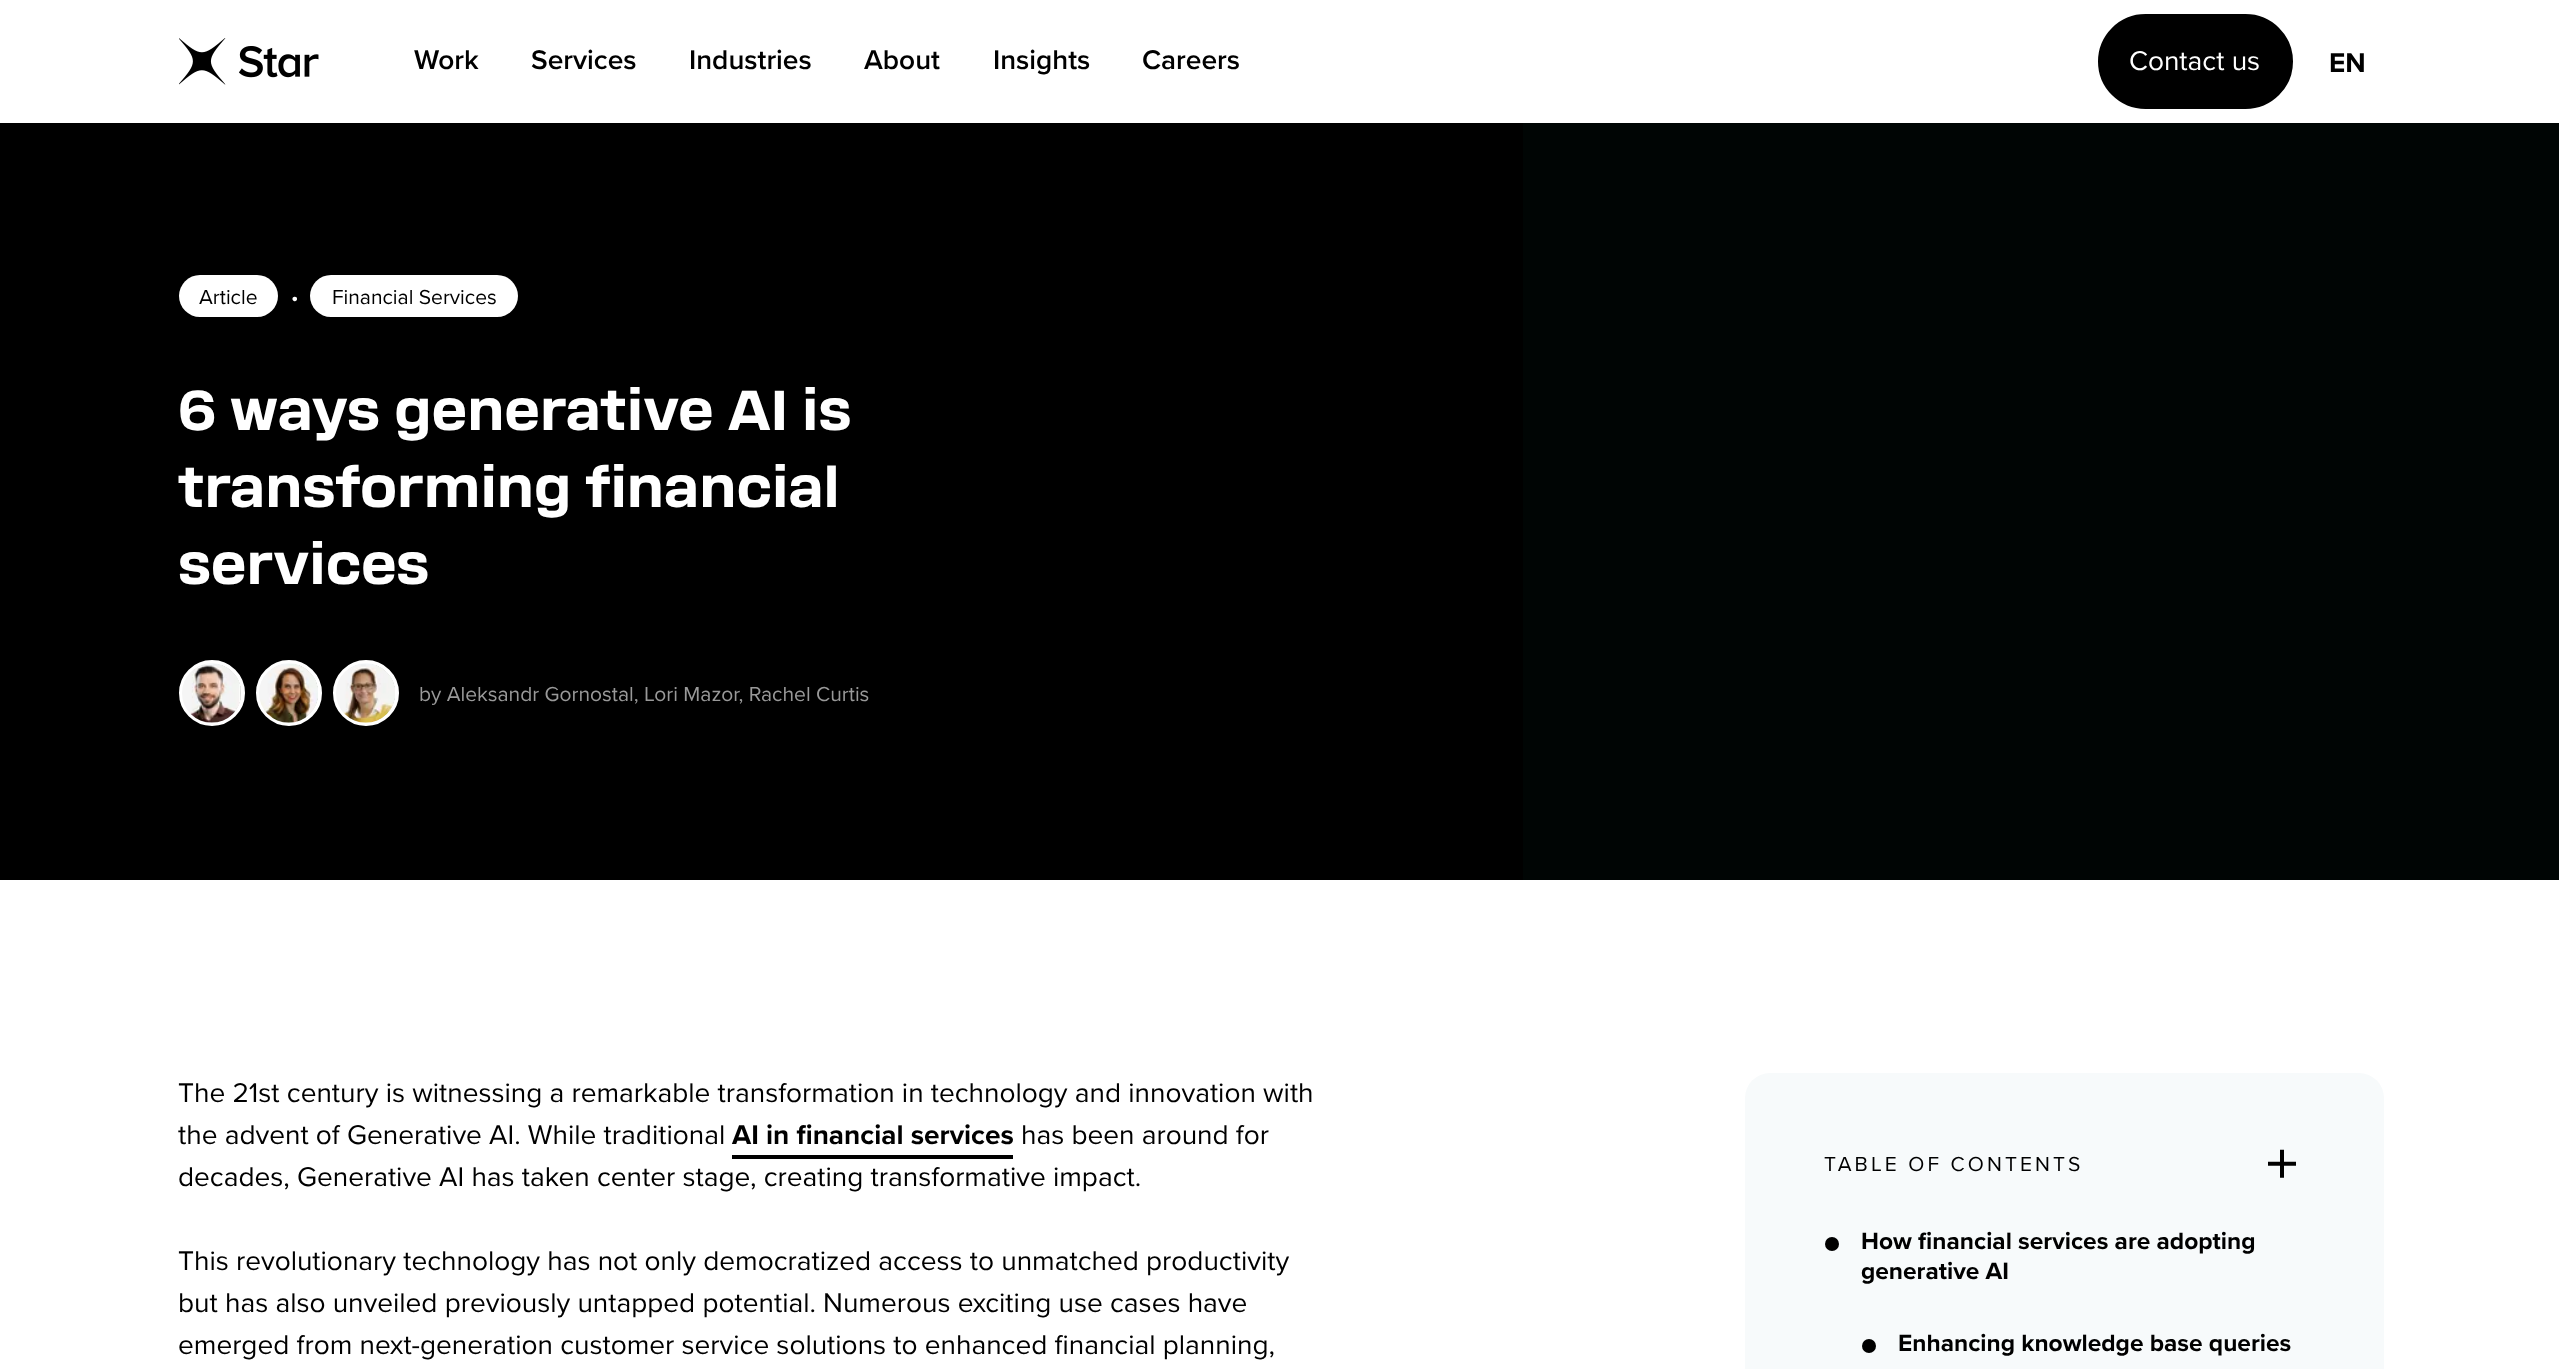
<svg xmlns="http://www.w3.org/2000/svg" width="2559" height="1369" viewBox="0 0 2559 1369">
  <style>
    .t1 { font: 600 28px Proxima Nova; fill: #000; }
    .t2 { font: 28px Proxima Nova; fill: #fff; }
    .t3 { font: bold 28px Proxima Nova; fill: #000; }
    .t4 { font: 21px Proxima Nova; fill: #000; }
    .t5 { font: 21px Proxima Nova; fill: #fff; }
    .t6 { font: bold 56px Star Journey; fill: #fff; }
    .t7 { font: 21px Proxima Nova; fill: #999; }
    .t8 { font: 28px Proxima Nova; fill: #000; }
    .t9 { font: 21px Proxima Nova; letter-spacing: 3.1px; fill: #000; }
    .t10 { font: bold 24.5px Proxima Nova; fill: #000; }
  </style>
  <rect width="100%" height="100%" fill="#fff"/>
  <image x="179" y="38" width="140" height="47" href="images/1.png"/>
  <text x="414" y="69" class="t1">Work</text>
  <text x="531" y="69" class="t1">Services</text>
  <text x="689" y="69" class="t1">Industries</text>
  <text x="864" y="69" class="t1">About</text>
  <text x="993" y="69" class="t1">Insights</text>
  <text x="1142" y="69" class="t1">Careers</text>
  <rect x="2100" y="16" width="191" height="91" rx="45.5" fill="#000" stroke="#000" stroke-width="4"/>
  <text x="2129" y="70" class="t2">Contact us</text>
  <text x="2329" y="72" class="t3">EN</text>
  <rect x="0" y="123" width="1523" height="757" fill="#000"/>
  <rect x="179" y="275" width="99" height="42" rx="21" fill="#fff"/>
  <text x="199" y="304" class="t4">Article</text>
  <text x="291" y="304" class="t5">•</text>
  <rect x="310" y="275" width="208" height="42" rx="21" fill="#fff"/>
  <text x="332" y="304" class="t4">Financial Services</text>
  <text x="178" y="430" class="t6">6 ways generative AI is</text>
  <text x="178" y="507" class="t6">transforming financial</text>
  <text x="178" y="584" class="t6">services</text>
  <circle cx="212" cy="693" r="31" fill="none" stroke="#fff" stroke-width="4"/>
  <image x="182" y="663" width="59" height="60" href="images/2.png"/>
  <circle cx="289" cy="693" r="31" fill="none" stroke="#fff" stroke-width="4"/>
  <image x="259" y="663" width="59" height="60" href="images/3.png"/>
  <circle cx="366" cy="693" r="31" fill="none" stroke="#fff" stroke-width="4"/>
  <image x="336" y="663" width="59" height="60" href="images/4.png"/>
  <text x="419" y="701" class="t7">by Aleksandr Gornostal, Lori Mazor, Rachel Curtis</text>
  <rect x="1523" y="123" width="1036" height="757" fill="#000504"/>
  <text x="178" y="1102" class="t8">The 21st century is witnessing a remarkable transformation in technology and innovation with</text>
  <text x="178" y="1144" class="t8">the advent of Generative AI. While traditional</text>
  <text x="732" y="1144" class="t3">AI in financial services</text>
  <rect x="732" y="1155" width="281" height="4" fill="#000"/>
  <text x="1021" y="1144" class="t8">has been around for</text>
  <text x="178" y="1186" class="t8">decades, Generative AI has taken center stage, creating transformative impact.</text>
  <text x="178" y="1270" class="t8">This revolutionary technology has not only democratized access to unmatched productivity</text>
  <text x="178" y="1312" class="t8">but has also unveiled previously untapped potential. Numerous exciting use cases have</text>
  <text x="178" y="1354" class="t8">emerged from next-generation customer service solutions to enhanced financial planning,</text>
  <rect x="1745" y="1073" width="639" height="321" rx="25" fill="#f7fafb"/>
  <text x="1824" y="1171" class="t9">TABLE OF CONTENTS</text>
  <image x="2268" y="1149" width="28" height="29" href="images/5.png"/>
  <circle cx="1832" cy="1244" r="7" fill="#000"/>
  <text x="1861" y="1249" class="t10">How financial services are adopting</text>
  <text x="1861" y="1279" class="t10">generative AI</text>
  <circle cx="1869" cy="1346" r="7" fill="#000"/>
  <text x="1898" y="1351" class="t10">Enhancing knowledge base queries</text>
</svg>
